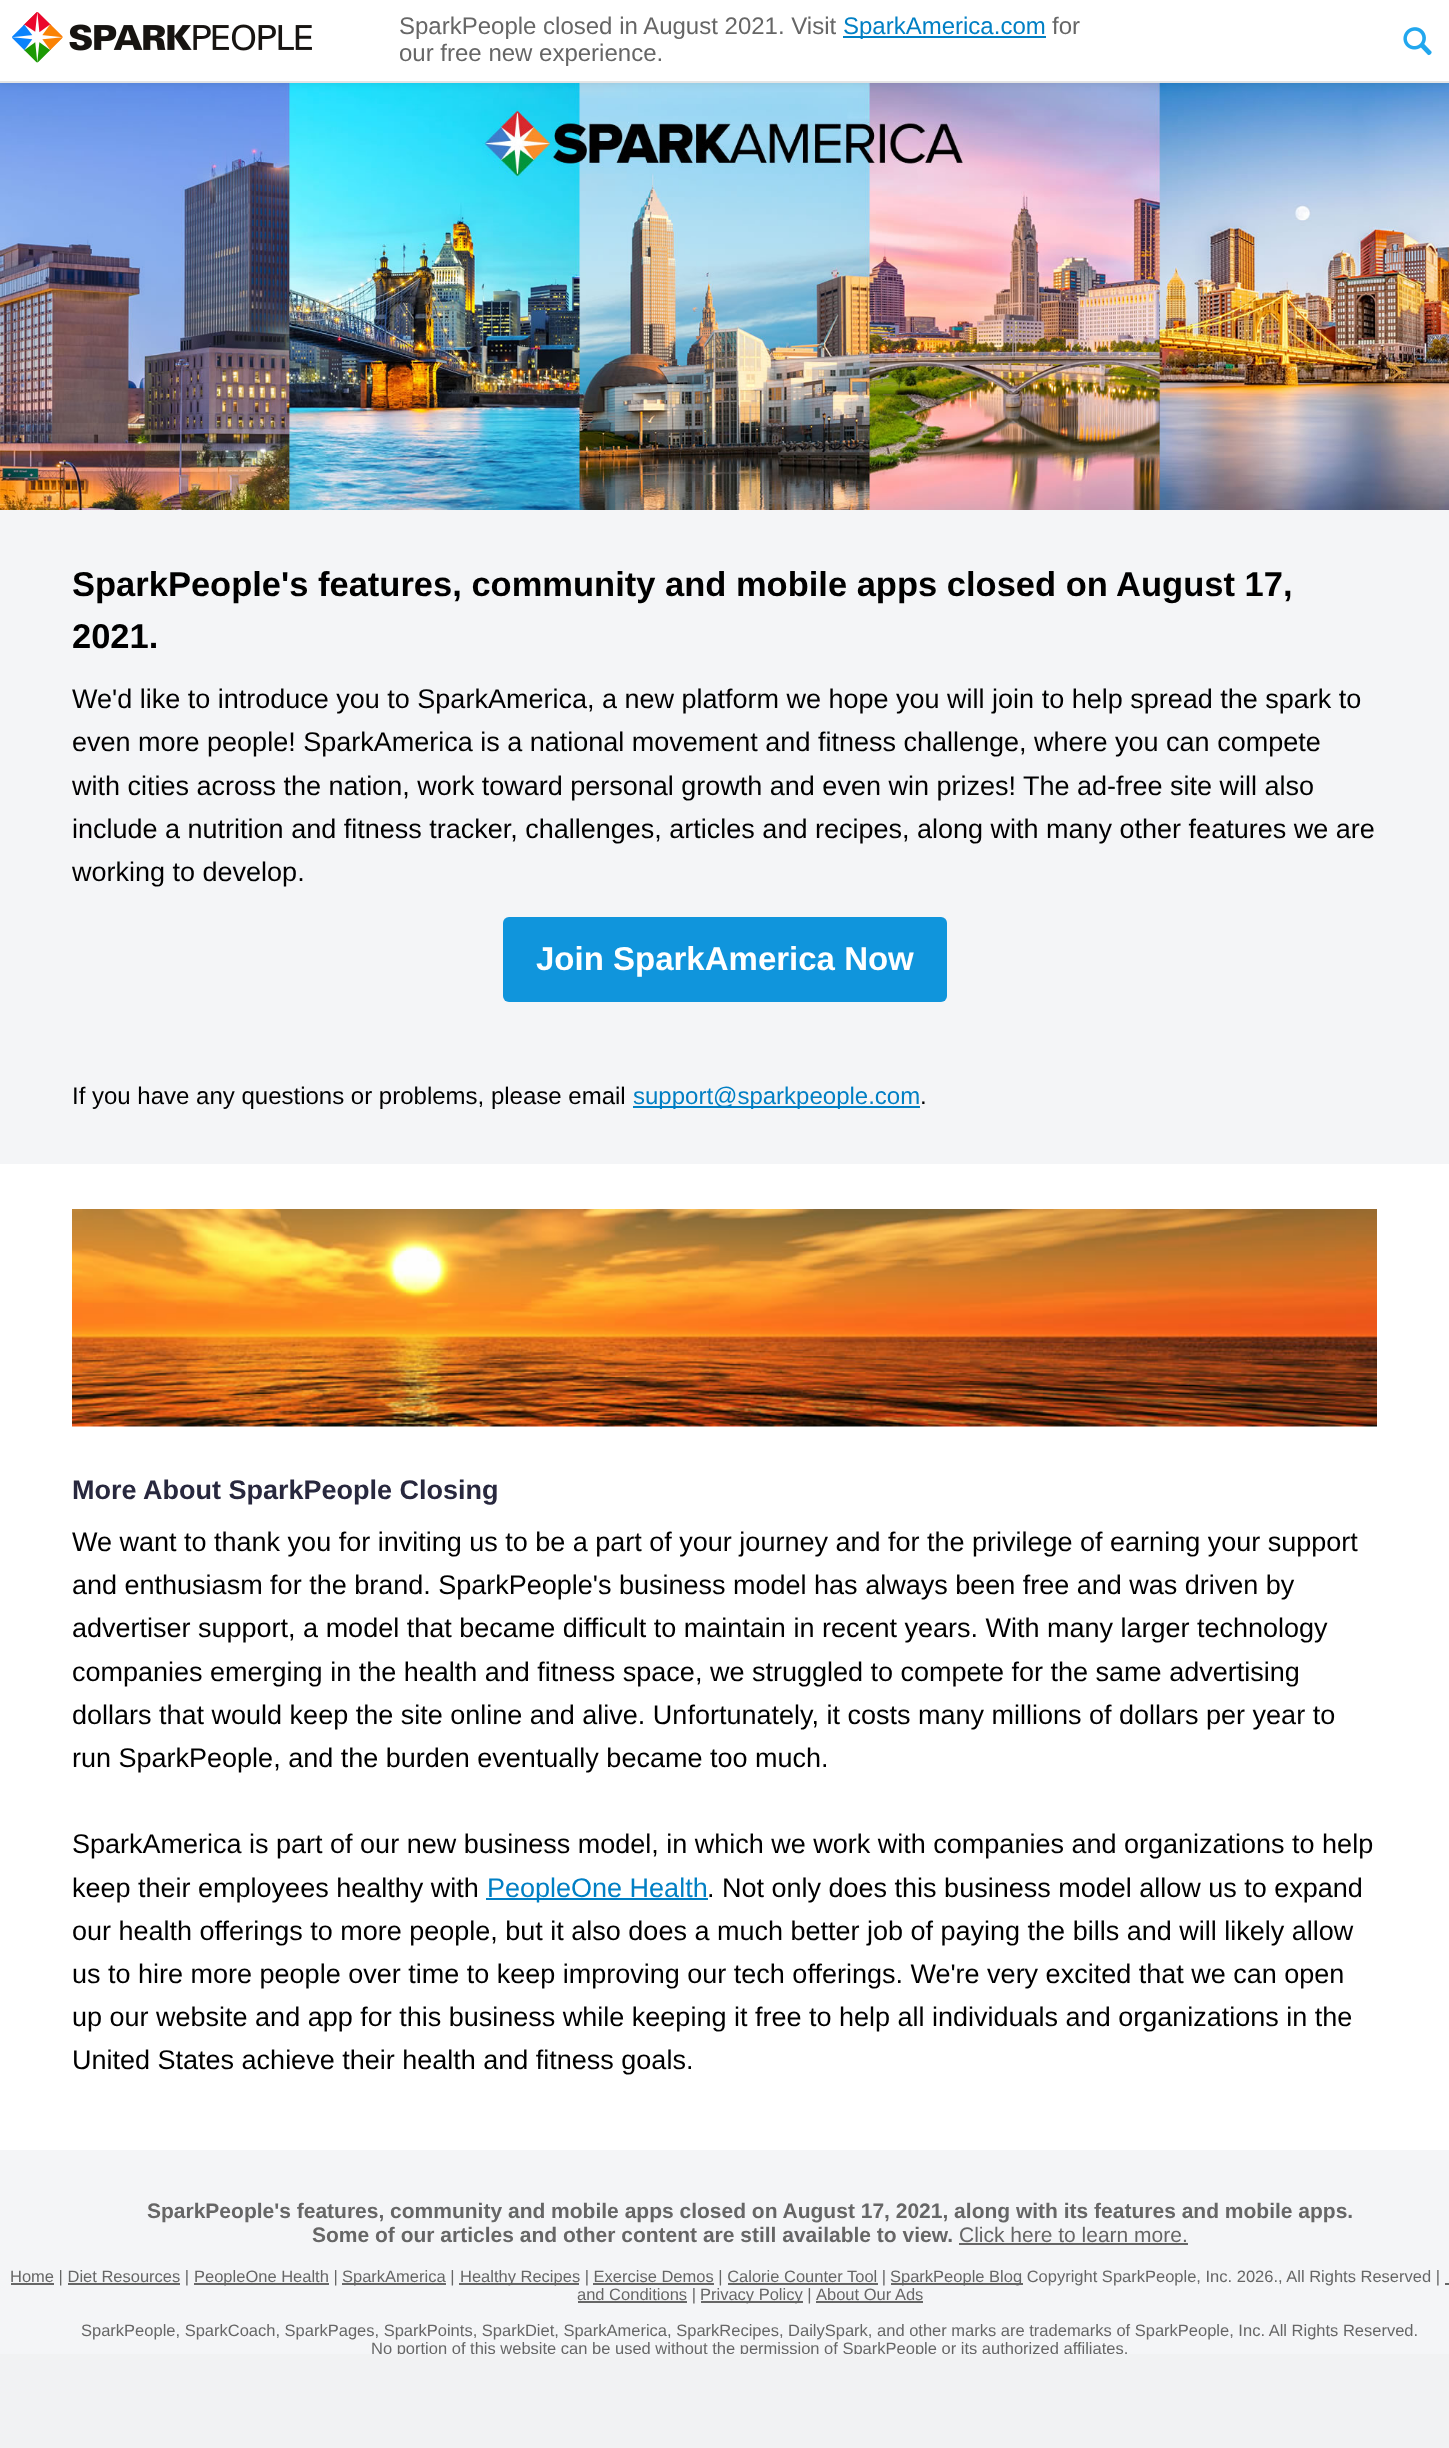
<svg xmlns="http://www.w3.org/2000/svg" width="1449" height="2448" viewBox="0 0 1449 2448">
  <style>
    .t1 { font: 24px Liberation Sans; fill: #666; }
    .t2 { font: 24px Liberation Sans; fill: #007fc4; }
    .t3 { font: bold 34.5px Liberation Sans; fill: #000; }
    .t4 { font: 27px Liberation Sans; fill: #000; }
    .t5 { font: bold 33px Liberation Sans; fill: #fff; }
    .t6 { font: 24px Liberation Sans; fill: #000; }
    .t7 { font: bold 27px Liberation Sans; fill: #28283e; }
    .t8 { font: 27px Liberation Sans; fill: #007fc4; }
    .t9 { font: bold 21px Liberation Sans; fill: #666; }
    .t10 { font: 21px Liberation Sans; fill: #666; }
    .t11 { font: 16.5px Liberation Sans; fill: #666; }
  </style>
  <defs>
    <clipPath id="clip1"><rect x="0" y="0" width="1449" height="2354"/></clipPath>
  </defs>
  <rect width="100%" height="100%" fill="#f1f2f3"/>
  <image x="0" y="83" width="1449" height="427" href="images/3.png"/>
  <rect x="0" y="0" width="1449" height="83" fill="#0000001a" filter="blur(4px)"/>
  <rect x="0" y="0" width="1449" height="81" fill="#fff"/>
  <rect x="0" y="81" width="1449" height="2" fill="#e5e5e5"/>
  <image x="12" y="12" width="300" height="51" href="images/1.png"/>
  <text x="399" y="34" class="t1">SparkPeople closed in August 2021. Visit</text>
  <rect x="843" y="36" width="203" height="2" fill="#007fc4"/>
  <text x="843" y="34" class="t2">SparkAmerica.com</text>
  <text x="1052" y="34" class="t1">for</text>
  <text x="399" y="61" class="t1">our free new experience.</text>
  <image x="1403" y="27" width="29" height="29" href="images/2.png"/>
  <rect x="0" y="510" width="1449" height="654" fill="#f4f5f7"/>
  <text x="72" y="596" class="t3">SparkPeople's features, community and mobile apps closed on August 17,</text>
  <text x="72" y="648" class="t3">2021.</text>
  <text x="72" y="708" class="t4">We'd like to introduce you to SparkAmerica, a new platform we hope you will join to help spread the spark to</text>
  <text x="72" y="751" class="t4">even more people! SparkAmerica is a national movement and fitness challenge, where you can compete</text>
  <text x="72" y="795" class="t4">with cities across the nation, work toward personal growth and even win prizes! The ad-free site will also</text>
  <text x="72" y="838" class="t4">include a nutrition and fitness tracker, challenges, articles and recipes, along with many other features we are</text>
  <text x="72" y="881" class="t4">working to develop.</text>
  <rect x="503" y="917" width="444" height="85" rx="6" fill="#1095dc"/>
  <text x="536" y="970" class="t5">Join SparkAmerica Now</text>
  <text x="72" y="1104" class="t6">If you have any questions or problems, please email</text>
  <rect x="633" y="1106" width="287" height="2" fill="#007fc4"/>
  <text x="633" y="1104" class="t2">support@sparkpeople.com</text>
  <text x="920" y="1104" class="t6">.</text>
  <rect x="0" y="1164" width="1449" height="986" fill="#fff"/>
  <image x="72" y="1209" width="1305" height="218" href="images/4.png"/>
  <text x="72" y="1499" class="t7">More About SparkPeople Closing</text>
  <text x="72" y="1551" class="t4">We want to thank you for inviting us to be a part of your journey and for the privilege of earning your support</text>
  <text x="72" y="1594" class="t4">and enthusiasm for the brand. SparkPeople's business model has always been free and was driven by</text>
  <text x="72" y="1637" class="t4">advertiser support, a model that became difficult to maintain in recent years. With many larger technology</text>
  <text x="72" y="1681" class="t4">companies emerging in the health and fitness space, we struggled to compete for the same advertising</text>
  <text x="72" y="1724" class="t4">dollars that would keep the site online and alive. Unfortunately, it costs many millions of dollars per year to</text>
  <text x="72" y="1767" class="t4">run SparkPeople, and the burden eventually became too much.</text>
  <text x="72" y="1853" class="t4">SparkAmerica is part of our new business model, in which we work with companies and organizations to help</text>
  <text x="72" y="1897" class="t4">keep their employees healthy with</text>
  <rect x="486" y="1898" width="222" height="2" fill="#007fc4"/>
  <text x="487" y="1897" class="t8">PeopleOne Health</text>
  <text x="707" y="1897" class="t4">. Not only does this business model allow us to expand</text>
  <text x="72" y="1940" class="t4">our health offerings to more people, but it also does a much better job of paying the bills and will likely allow</text>
  <text x="72" y="1983" class="t4">us to hire more people over time to keep improving our tech offerings. We're very excited that we can open</text>
  <text x="72" y="2026" class="t4">up our website and app for this business while keeping it free to help all individuals and organizations in the</text>
  <text x="72" y="2069" class="t4">United States achieve their health and fitness goals.</text>
  <rect x="0" y="2150" width="1449" height="204" fill="#f4f5f7"/>
  <text x="147" y="2218" class="t9">SparkPeople's features, community and mobile apps closed on August 17, 2021, along with its features and mobile apps.</text>
  <text x="312" y="2242" class="t9">Some of our articles and other content are still available to view.</text>
  <text x="959" y="2242" class="t10">Click here to learn more.</text>
  <rect x="959" y="2243" width="229" height="2" fill="#666"/>
  <rect x="11" y="2283" width="43" height="2" fill="#666"/>
  <text x="10" y="2282" class="t11">Home | Diet Resources |</text>
  <rect x="194" y="2283" width="135" height="2" fill="#666"/>
  <text x="194" y="2282" class="t11">PeopleOne Health |</text>
  <rect x="342" y="2283" width="104" height="2" fill="#666"/>
  <text x="342" y="2282" class="t11">SparkAmerica |</text>
  <rect x="459" y="2283" width="120" height="2" fill="#666"/>
  <text x="460" y="2282" class="t11">Healthy Recipes | Exercise Demos | Calorie Counter Tool |</text>
  <rect x="891" y="2283" width="132" height="2" fill="#666"/>
  <text x="890" y="2282" class="t11">SparkPeople Blog Copyright SparkPeople, Inc. 2026., All Rights Reserved |</text>
  <rect x="68" y="2283" width="112" height="2" fill="#666"/>
  <rect x="593" y="2283" width="121" height="2" fill="#666"/>
  <rect x="728" y="2283" width="150" height="2" fill="#666"/>
  <rect x="578" y="2301" width="109" height="2" fill="#666"/>
  <text x="577" y="2300" class="t11">and Conditions |</text>
  <rect x="1445" y="2283" width="4" height="2" fill="#666"/>
  <rect x="701" y="2301" width="102" height="2" fill="#666"/>
  <text x="700" y="2300" class="t11">Privacy Policy |</text>
  <text x="816" y="2300" class="t11">About Our Ads</text>
  <rect x="816" y="2301" width="107" height="2" fill="#666"/>
  <text x="81" y="2336" class="t11">SparkPeople, SparkCoach, SparkPages, SparkPoints, SparkDiet, SparkAmerica, SparkRecipes, DailySpark, and other marks are trademarks of SparkPeople, Inc. All Rights Reserved.</text>
  <g clip-path="url(#clip1)">
    <text x="371" y="2354" class="t11">No portion of this website can be used without the permission of SparkPeople or its authorized affiliates.</text>
  </g>
</svg>
